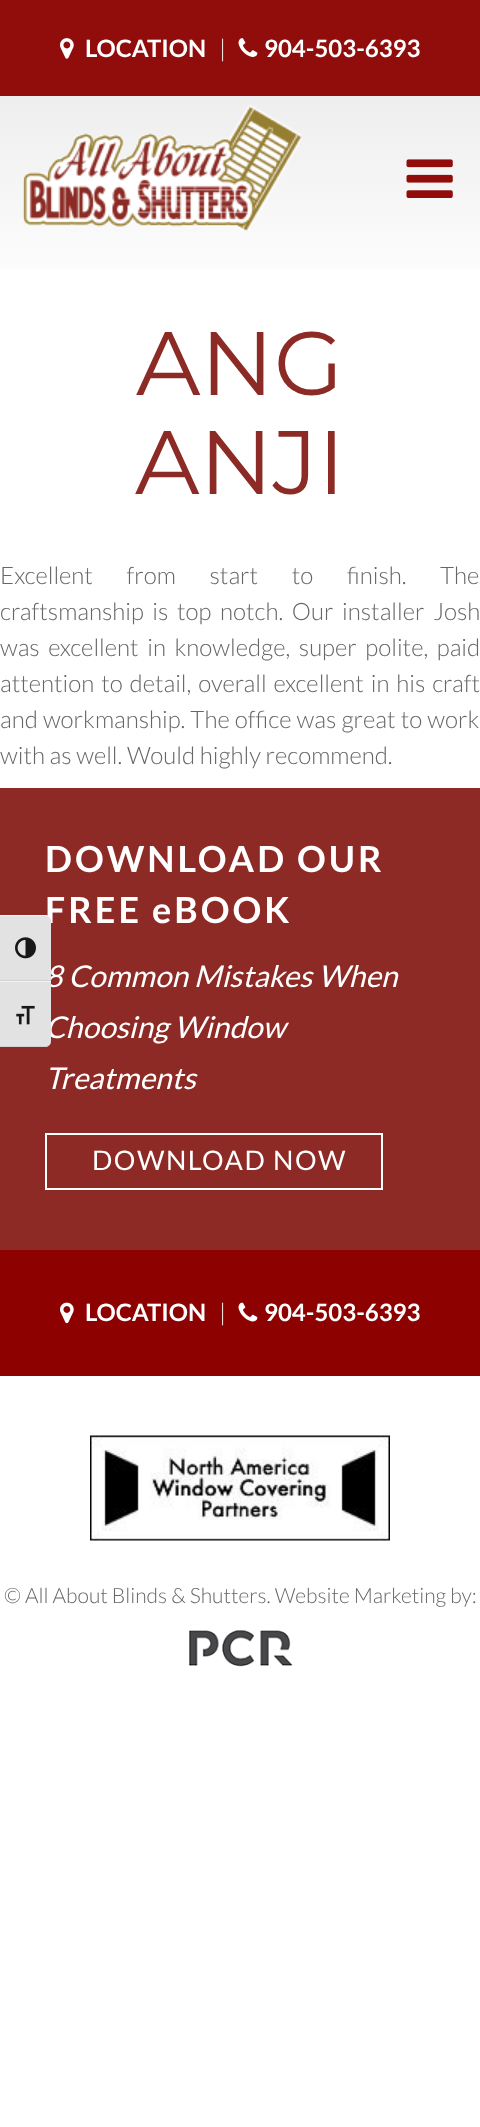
<svg xmlns="http://www.w3.org/2000/svg" width="480" height="2127" viewBox="0 0 480 2127">
  <style>
    .t1 { font: bold 24px Lato; fill: #fff; }
    .t2 { font: 300 24px Lato; fill: #fff; }
    .t3 { font: bold 36px Lato; letter-spacing: 3px; fill: #fff; }
    .t4 { font: italic 30px Lato; fill: #fff; }
    .t5 { font: 90px Montserrat; fill: #8c2a25; }
    .t6 { font: 300 24px Lato; fill: #666; }
    .t7 { font: 27px Lato; letter-spacing: 1.5px; fill: #fff; }
    .t8 { font: 300 21px Lato; fill: #666; }
  </style>
  <defs>
    <linearGradient id="g1" gradientUnits="userSpaceOnUse" x1="240" y1="96" x2="240" y2="269"><stop offset="0" stop-color="#eee"/><stop offset="1" stop-color="#fcfcfc"/></linearGradient>
  </defs>
  <rect width="100%" height="100%" fill="#fff"/>
  <rect x="0" y="0" width="480" height="96" fill="#910d0c"/>
  <image x="60" y="38" width="14" height="21" href="images/1.png"/>
  <text x="85" y="57" class="t1">LOCATION</text>
  <text x="219" y="57" class="t2">|</text>
  <image x="238" y="38" width="20" height="19" href="images/2.png"/>
  <text x="264" y="57" class="t1">904-503-6393</text>
  <rect x="0" y="96" width="480" height="173" fill="url(#g1)"/>
  <image x="22" y="105" width="280" height="126" href="images/3.png"/>
  <image x="406" y="159" width="47" height="39" href="images/4.png"/>
  <rect x="0" y="788" width="480" height="462" fill="#8d2a25"/>
  <text x="45" y="923" class="t3">FREE eBOOK</text>
  <text x="45" y="987" class="t4">8 Common Mistakes When</text>
  <path d="M0 915H45C48.5 915 51 917.5 51 921V981H0Z" fill="#e2e2e2"/>
  <path d="M0 915V916H45C48 916 51 919 51 921C51 918 48 915 45 915Z" fill="#f5f5f5"/>
  <rect x="0" y="980" width="51" height="1" fill="#d2d2d2"/>
  <image x="15" y="937" width="21" height="22" href="images/5.png"/>
  <text x="45" y="1038" class="t4">Choosing Window</text>
  <path d="M0 981H51V1041C51 1044.5 48.5 1047 45 1047H0Z" fill="#e2e2e2"/>
  <rect x="0" y="981" width="51" height="1" fill="#f5f5f5"/>
  <path d="M0 1046V1047H45C48 1047 51 1044 51 1041C51 1043 48 1046 45 1046Z" fill="#d2d2d2"/>
  <image x="16" y="1005" width="19" height="20" href="images/6.png"/>
  <text x="136" y="395" class="t5">ANG</text>
  <text x="135" y="494" class="t5">ANJI</text>
  <text x="0" y="584" word-spacing="29" class="t6">Excellent from start to finish. The</text>
  <text x="0" y="620" word-spacing="4" class="t6">craftsmanship is top notch. Our installer Josh</text>
  <text x="0" y="656" word-spacing="4" class="t6">was excellent in knowledge, super polite, paid</text>
  <text x="0" y="692" word-spacing="2.25" class="t6">attention to detail, overall excellent in his craft</text>
  <text x="0" y="728" word-spacing="0.5" class="t6">and workmanship. The office was great to work</text>
  <text x="0" y="764" class="t6">with as well. Would highly recommend.</text>
  <text x="45" y="872" class="t3">DOWNLOAD OUR</text>
  <text x="45" y="1089" class="t4">Treatments</text>
  <rect x="46" y="1134" width="336" height="55" fill="none" stroke="#fff" stroke-width="2"/>
  <text x="92" y="1170" class="t7">DOWNLOAD NOW</text>
  <rect x="0" y="1250" width="480" height="126" fill="#8d0101"/>
  <image x="60" y="1302" width="14" height="22" href="images/7.png"/>
  <text x="85" y="1321" class="t1">LOCATION</text>
  <text x="219" y="1321" class="t2">|</text>
  <image x="238" y="1302" width="20" height="20" href="images/8.png"/>
  <text x="264" y="1321" class="t1">904-503-6393</text>
  <image x="90" y="1435" width="300" height="106" href="images/9.png"/>
  <text x="4" y="1603" class="t8">© All About Blinds &amp; Shutters. Website Marketing by:</text>
  <image x="189" y="1630" width="104" height="37" href="images/10.png"/>
</svg>
